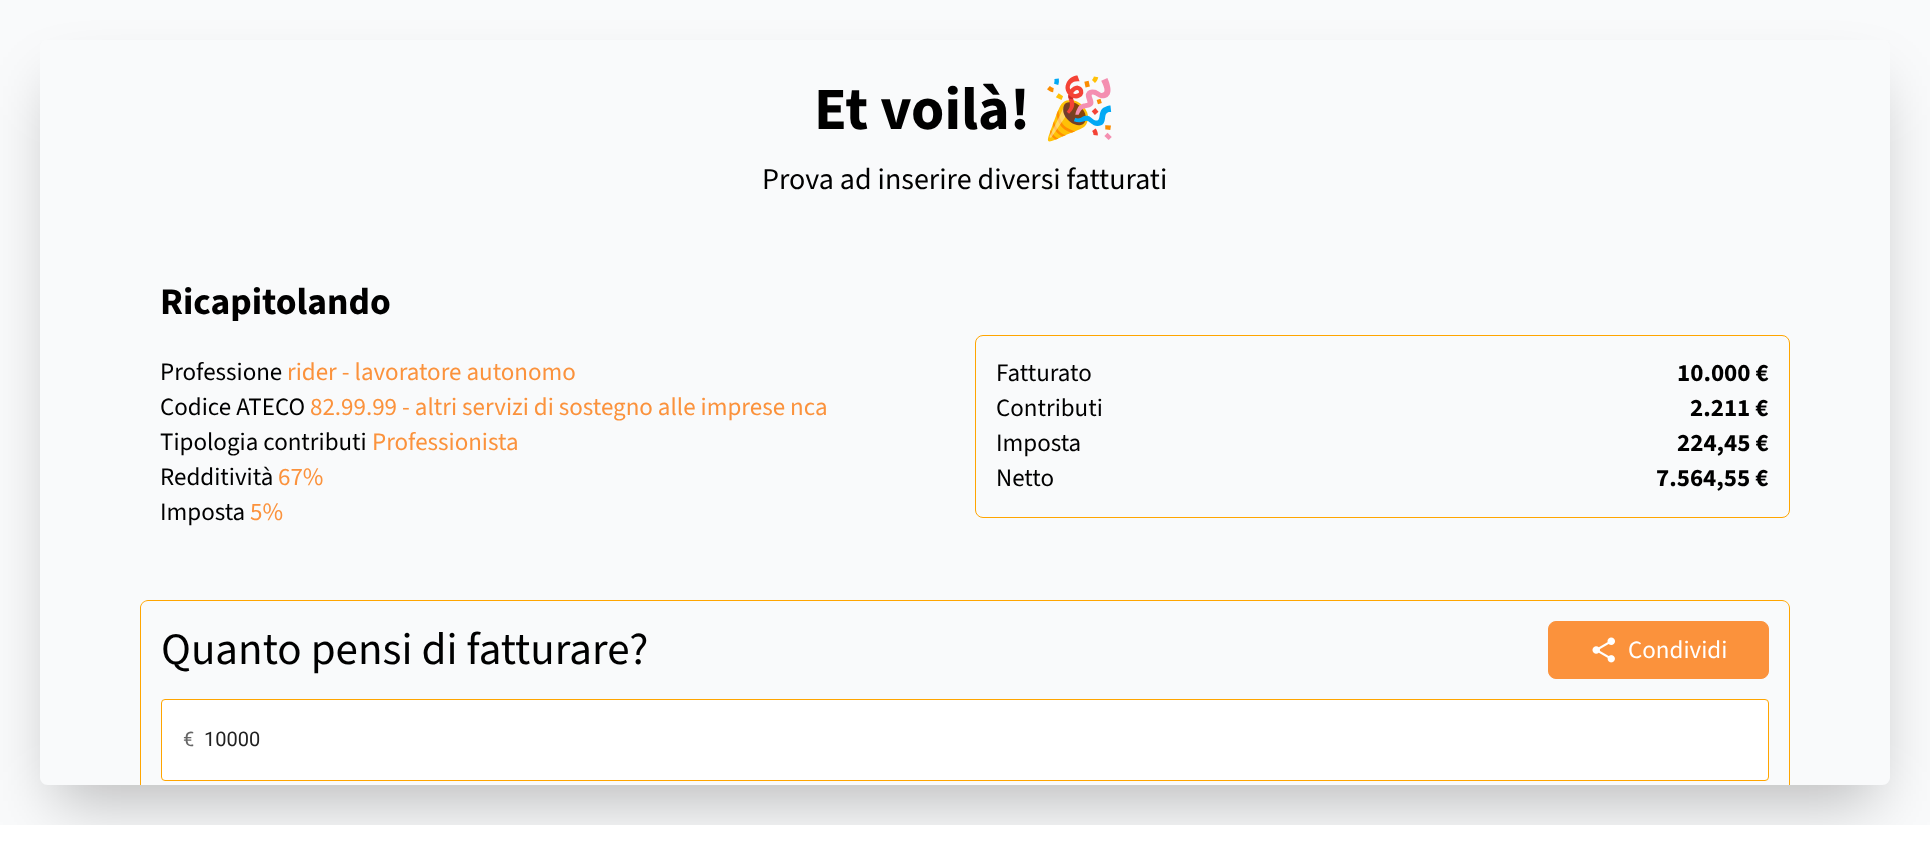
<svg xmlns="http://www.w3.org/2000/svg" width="1930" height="845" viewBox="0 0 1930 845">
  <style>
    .t1 { font: bold 60px 'Source Sans 3'; fill: #000; }
    .t2 { font: bold 60px Noto Color Emoji; fill: #000; }
    .t3 { font: 30px 'Source Sans 3'; fill: #000; }
    .t4 { font: bold 37.5px 'Source Sans 3'; fill: #000; }
    .t5 { font: 25px 'Source Sans 3'; fill: #000; }
    .t6 { font: 25px 'Source Sans 3'; fill: #fb923c; }
    .t7 { font: bold 25px 'Source Sans 3'; fill: #000; }
    .t8 { font: 45px 'Source Sans 3'; fill: #000; }
    .t9 { font: 25px 'Source Sans 3'; fill: #fff; }
    .t10 { font: 20px Roboto; fill: #666; }
    .t11 { font: 20px Roboto; fill: #212121; }
  </style>
  <defs>
    <clipPath id="clip1"><rect x="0" y="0" width="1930" height="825"/></clipPath>
    <clipPath id="clip2"><path d="M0 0H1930V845H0ZM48 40H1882C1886.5 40 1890 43.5 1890 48V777C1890 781.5 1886.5 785 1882 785H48C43.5 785 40 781.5 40 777V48C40 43.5 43.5 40 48 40Z" clip-rule="evenodd"/></clipPath>
  </defs>
  <rect width="100%" height="100%" fill="#fff"/>
  <rect x="0" y="0" width="1930" height="825" fill="#f9fafb"/>
  <g clip-path="url(#clip1)">
    <g clip-path="url(#clip2)">
      <rect x="55" y="86" width="1820" height="715" fill="#00000040" filter="blur(31px)"/>
    </g>
  </g>
  <text x="814" y="129" class="t1">Et voilà!</text>
  <text x="1042" y="129" class="t2">🎉</text>
  <text x="762" y="189" class="t3">Prova ad inserire diversi fatturati</text>
  <text x="160" y="314" class="t4">Ricapitolando</text>
  <text x="160" y="380" class="t5">Professione</text>
  <text x="287" y="380" class="t6">rider - lavoratore autonomo</text>
  <text x="160" y="415" class="t5">Codice ATECO</text>
  <text x="310" y="415" class="t6">82.99.99 - altri servizi di sostegno alle imprese nca</text>
  <text x="160" y="450" class="t5">Tipologia contributi</text>
  <text x="372" y="450" class="t6">Professionista</text>
  <text x="160" y="485" class="t5">Redditività</text>
  <text x="278" y="485" class="t6">67%</text>
  <text x="160" y="520" class="t5">Imposta</text>
  <text x="250" y="520" class="t6">5%</text>
  <rect x="975.5" y="335.5" width="814" height="182" rx="7.5" fill="none" stroke="#ffa500"/>
  <text x="996" y="381" class="t5">Fatturato</text>
  <text x="1677" y="381" class="t7">10.000 €</text>
  <text x="996" y="416" class="t5">Contributi</text>
  <text x="1690" y="416" class="t7">2.211 €</text>
  <text x="996" y="451" class="t5">Imposta</text>
  <text x="1677" y="451" class="t7">224,45 €</text>
  <text x="996" y="486" class="t5">Netto</text>
  <text x="1656" y="486" class="t7">7.564,55 €</text>
  <path d="M148 600C144 600 140 604 140 608V785H141V608C141 604 144 601 148 601H1782C1786 601 1789 604 1789 608V785H1790V608C1790 604 1786 600 1782 600Z" fill="#ffa500"/>
  <text x="161" y="664" class="t8">Quanto pensi di fatturare?</text>
  <rect x="1548.5" y="621.5" width="220" height="57" rx="7.5" fill="#fb923c" stroke="#fb923c"/>
  <image x="1592" y="637" width="23" height="26" href="images/1.png"/>
  <text x="1628" y="658" class="t9">Condividi</text>
  <rect x="161.5" y="699.5" width="1607" height="81" rx="3.5" fill="#fff" stroke="#ffa500"/>
  <text x="183" y="746" class="t10">€</text>
  <text x="204" y="746" class="t11">10000</text>
</svg>
